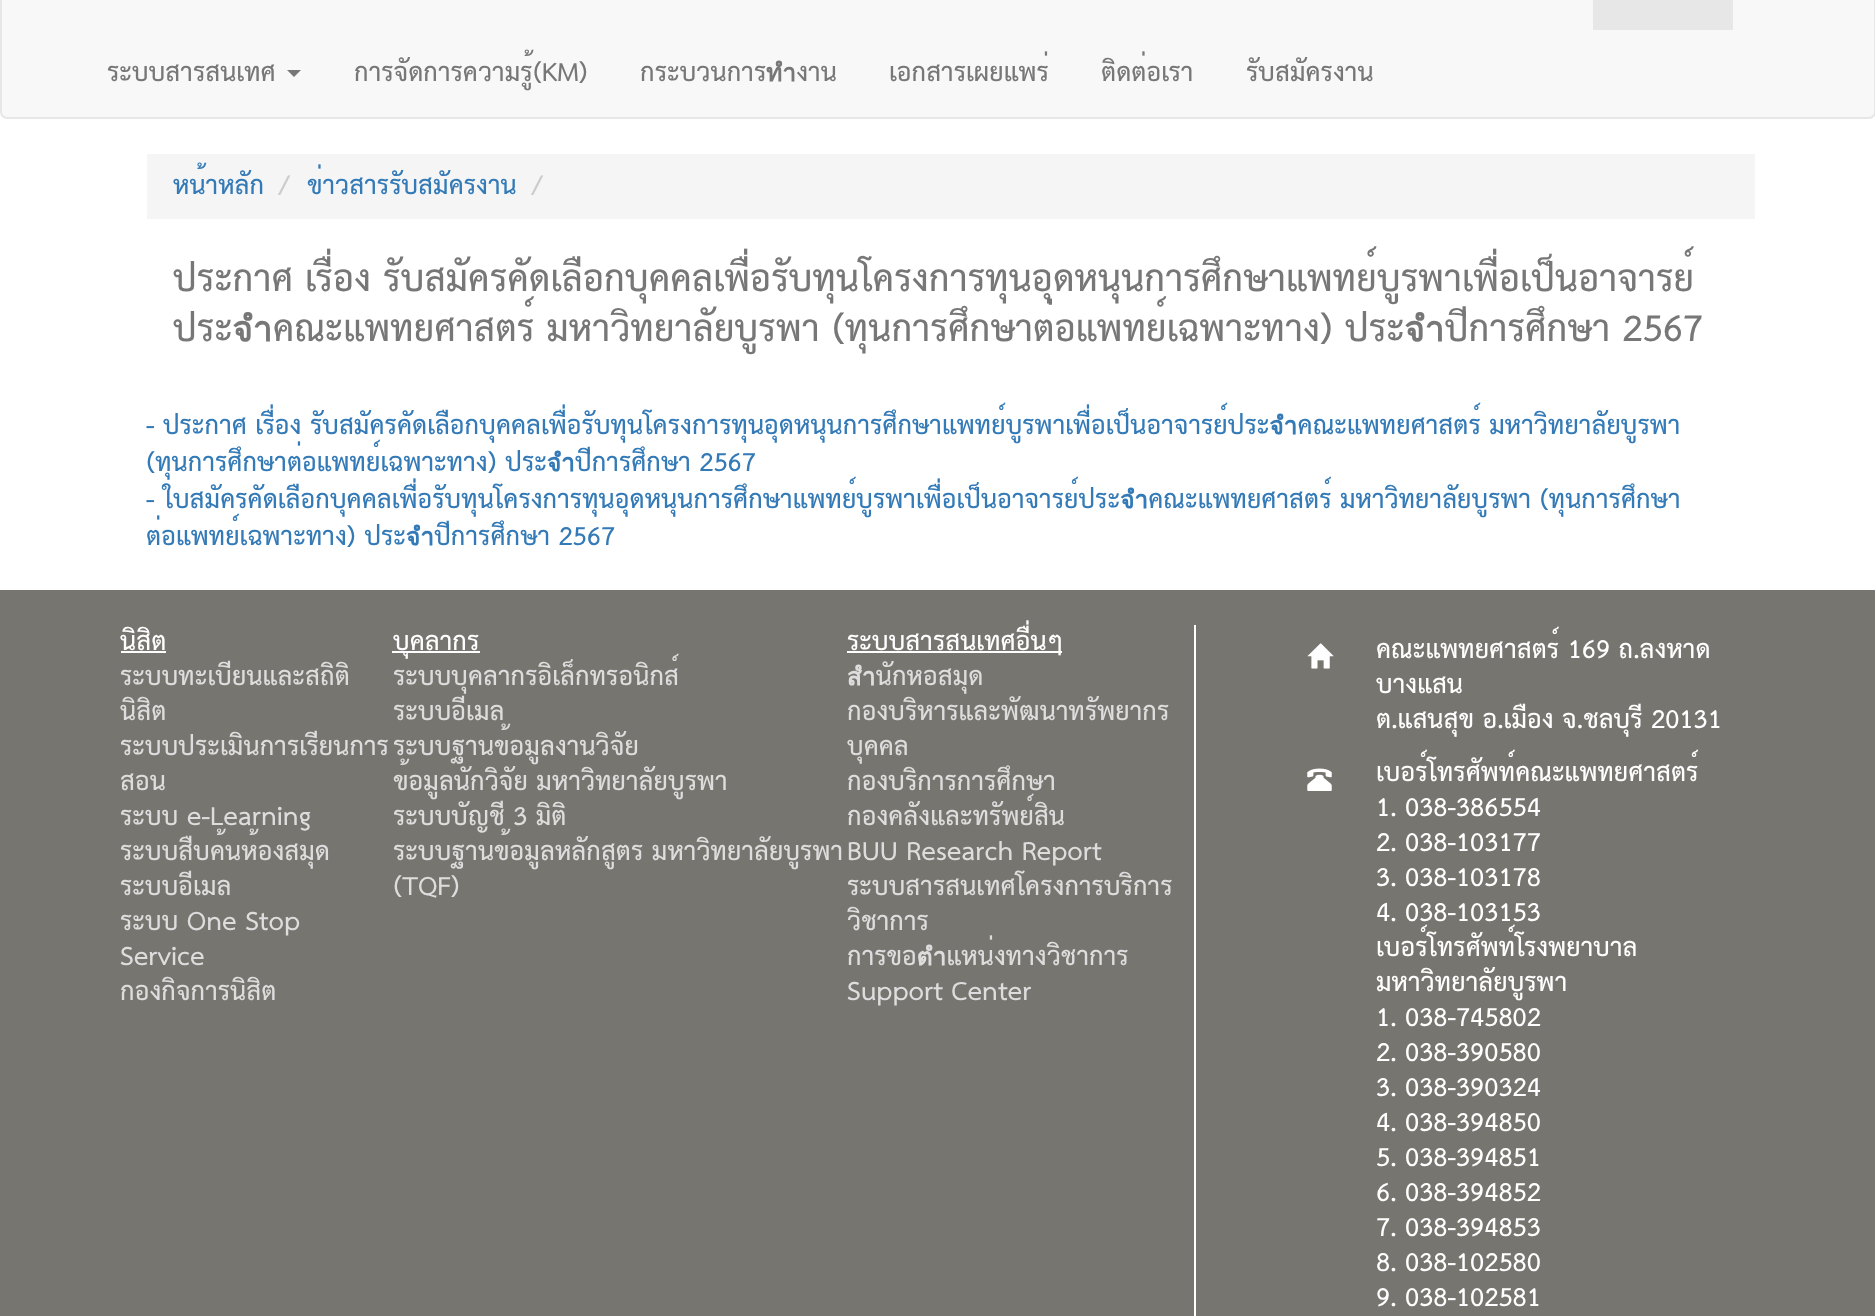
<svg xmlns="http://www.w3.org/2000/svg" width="1875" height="1316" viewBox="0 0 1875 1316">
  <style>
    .t1 { font: bold 24.5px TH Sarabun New; fill: #777; }
    .t2 { font: bold 24.5px TH Sarabun New; fill: #337ab7; }
    .t3 { font: bold 24.5px TH Sarabun New; fill: #ccc; }
    .t4 { font: bold 35px TH Sarabun New; fill: #777; }
    .t5 { font: bold 24.5px TH Sarabun New; fill: #fff; }
    .t6 { font: bold 24.5px TH Sarabun New; fill: #ddd; }
  </style>
  <rect width="100%" height="100%" fill="#fff"/>
  <rect x="1" y="-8" width="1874" height="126" rx="6" fill="#f8f8f8" stroke="#e7e7e7" stroke-width="2"/>
  <rect x="1593" y="0" width="140" height="30" fill="#e7e7e7"/>
  <text x="107" y="81" class="t1">ระบบสารสนเทศ</text>
  <path d="M287 70H301L294 77Z" fill="#777"/>
  <text x="354" y="81" class="t1">การจัดการความรู้(KM)</text>
  <text x="640" y="81" class="t1">กระบวนการทำงาน</text>
  <text x="889" y="81" class="t1">เอกสารเผยแพร่</text>
  <text x="1101" y="81" class="t1">ติดต่อเรา</text>
  <text x="1246" y="81" class="t1">รับสมัครงาน</text>
  <rect x="147" y="154" width="1608" height="65" fill="#f5f5f5"/>
  <text x="173" y="194" class="t2">หน้าหลัก</text>
  <text x="279" y="194" class="t3">/</text>
  <text x="307" y="194" class="t2">ข่าวสารรับสมัครงาน</text>
  <text x="532" y="194" class="t3">/</text>
  <text x="173" y="291" class="t4">ประกาศ เรื่อง รับสมัครคัดเลือกบุคคลเพื่อรับทุนโครงการทุนอุดหนุนการศึกษาแพทย์บูรพาเพื่อเป็นอาจารย์</text>
  <text x="173" y="341" class="t4">ประจำคณะแพทยศาสตร์ มหาวิทยาลัยบูรพา (ทุนการศึกษาต่อแพทย์เฉพาะทาง) ประจำปีการศึกษา 2567</text>
  <text x="146" y="434" class="t2">- ประกาศ เรื่อง รับสมัครคัดเลือกบุคคลเพื่อรับทุนโครงการทุนอุดหนุนการศึกษาแพทย์บูรพาเพื่อเป็นอาจารย์ประจำคณะแพทยศาสตร์ มหาวิทยาลัยบูรพา</text>
  <text x="146" y="471" class="t2">(ทุนการศึกษาต่อแพทย์เฉพาะทาง) ประจำปีการศึกษา 2567</text>
  <text x="146" y="508" class="t2">- ใบสมัครคัดเลือกบุคคลเพื่อรับทุนโครงการทุนอุดหนุนการศึกษาแพทย์บูรพาเพื่อเป็นอาจารย์ประจำคณะแพทยศาสตร์ มหาวิทยาลัยบูรพา (ทุนการศึกษา</text>
  <text x="146" y="545" class="t2">ต่อแพทย์เฉพาะทาง) ประจำปีการศึกษา 2567</text>
  <rect x="0" y="590" width="1875" height="726" fill="#777570"/>
  <text x="120" y="650" class="t5">นิสิต</text>
  <rect x="121" y="651" width="45" height="2" fill="#fff"/>
  <text x="120" y="685" class="t6">ระบบทะเบียนและสถิติ</text>
  <text x="120" y="720" class="t6">นิสิต</text>
  <text x="120" y="755" class="t6">ระบบประเมินการเรียนการ</text>
  <text x="120" y="790" class="t6">สอน</text>
  <text x="120" y="825" class="t6">ระบบ e-Learning</text>
  <text x="120" y="860" class="t6">ระบบสืบค้นห้องสมุด</text>
  <text x="120" y="895" class="t6">ระบบอีเมล</text>
  <text x="120" y="930" class="t6">ระบบ One Stop</text>
  <text x="120" y="965" class="t6">Service</text>
  <text x="120" y="1000" class="t6">กองกิจการนิสิต</text>
  <rect x="392" y="651" width="88" height="2" fill="#fff"/>
  <text x="393" y="650" class="t5">บุคลากร</text>
  <text x="393" y="685" class="t6">ระบบบุคลากรอิเล็กทรอนิกส์</text>
  <text x="393" y="720" class="t6">ระบบอีเมล</text>
  <text x="393" y="755" class="t6">ระบบฐานข้อมูลงานวิจัย</text>
  <text x="393" y="790" class="t6">ข้อมูลนักวิจัย มหาวิทยาลัยบูรพา</text>
  <text x="393" y="825" class="t6">ระบบบัญชี 3 มิติ</text>
  <text x="393" y="860" class="t6">ระบบฐานข้อมูลหลักสูตร มหาวิทยาลัยบูรพา</text>
  <text x="393" y="895" class="t6">(TQF)</text>
  <rect x="847" y="651" width="215" height="2" fill="#fff"/>
  <text x="847" y="650" class="t5">ระบบสารสนเทศอื่นๆ</text>
  <text x="847" y="685" class="t6">สำนักหอสมุด</text>
  <text x="847" y="720" class="t6">กองบริหารและพัฒนาทรัพยากร</text>
  <text x="847" y="755" class="t6">บุคคล</text>
  <text x="847" y="790" class="t6">กองบริการการศึกษา</text>
  <text x="847" y="825" class="t6">กองคลังและทรัพย์สิน</text>
  <text x="847" y="860" class="t6">BUU Research Report</text>
  <text x="847" y="895" class="t6">ระบบสารสนเทศโครงการบริการ</text>
  <text x="847" y="930" class="t6">วิชาการ</text>
  <text x="847" y="965" class="t6">การขอตำแหน่งทางวิชาการ</text>
  <text x="847" y="1000" class="t6">Support Center</text>
  <rect x="1194" y="625" width="2" height="691" fill="#fff"/>
  <image x="1307" y="643" width="27" height="26" href="images/1.png"/>
  <text x="1376" y="658" class="t5">คณะแพทยศาสตร์ 169 ถ.ลงหาด</text>
  <text x="1376" y="693" class="t5">บางแสน</text>
  <text x="1376" y="728" class="t5">ต.แสนสุข อ.เมือง จ.ชลบุรี 20131</text>
  <image x="1307" y="768" width="25" height="23" href="images/2.png"/>
  <text x="1376" y="781" class="t5">เบอร์โทรศัพท์คณะแพทยศาสตร์</text>
  <text x="1376" y="816" class="t5">1. 038-386554</text>
  <text x="1376" y="851" class="t5">2. 038-103177</text>
  <text x="1376" y="886" class="t5">3. 038-103178</text>
  <text x="1376" y="921" class="t5">4. 038-103153</text>
  <text x="1376" y="956" class="t5">เบอร์โทรศัพท์โรงพยาบาล</text>
  <text x="1376" y="991" class="t5">มหาวิทยาลัยบูรพา</text>
  <text x="1376" y="1026" class="t5">1. 038-745802</text>
  <text x="1376" y="1061" class="t5">2. 038-390580</text>
  <text x="1376" y="1096" class="t5">3. 038-390324</text>
  <text x="1376" y="1131" class="t5">4. 038-394850</text>
  <text x="1376" y="1166" class="t5">5. 038-394851</text>
  <text x="1376" y="1201" class="t5">6. 038-394852</text>
  <text x="1376" y="1236" class="t5">7. 038-394853</text>
  <text x="1376" y="1271" class="t5">8. 038-102580</text>
  <text x="1376" y="1306" class="t5">9. 038-102581</text>
</svg>
